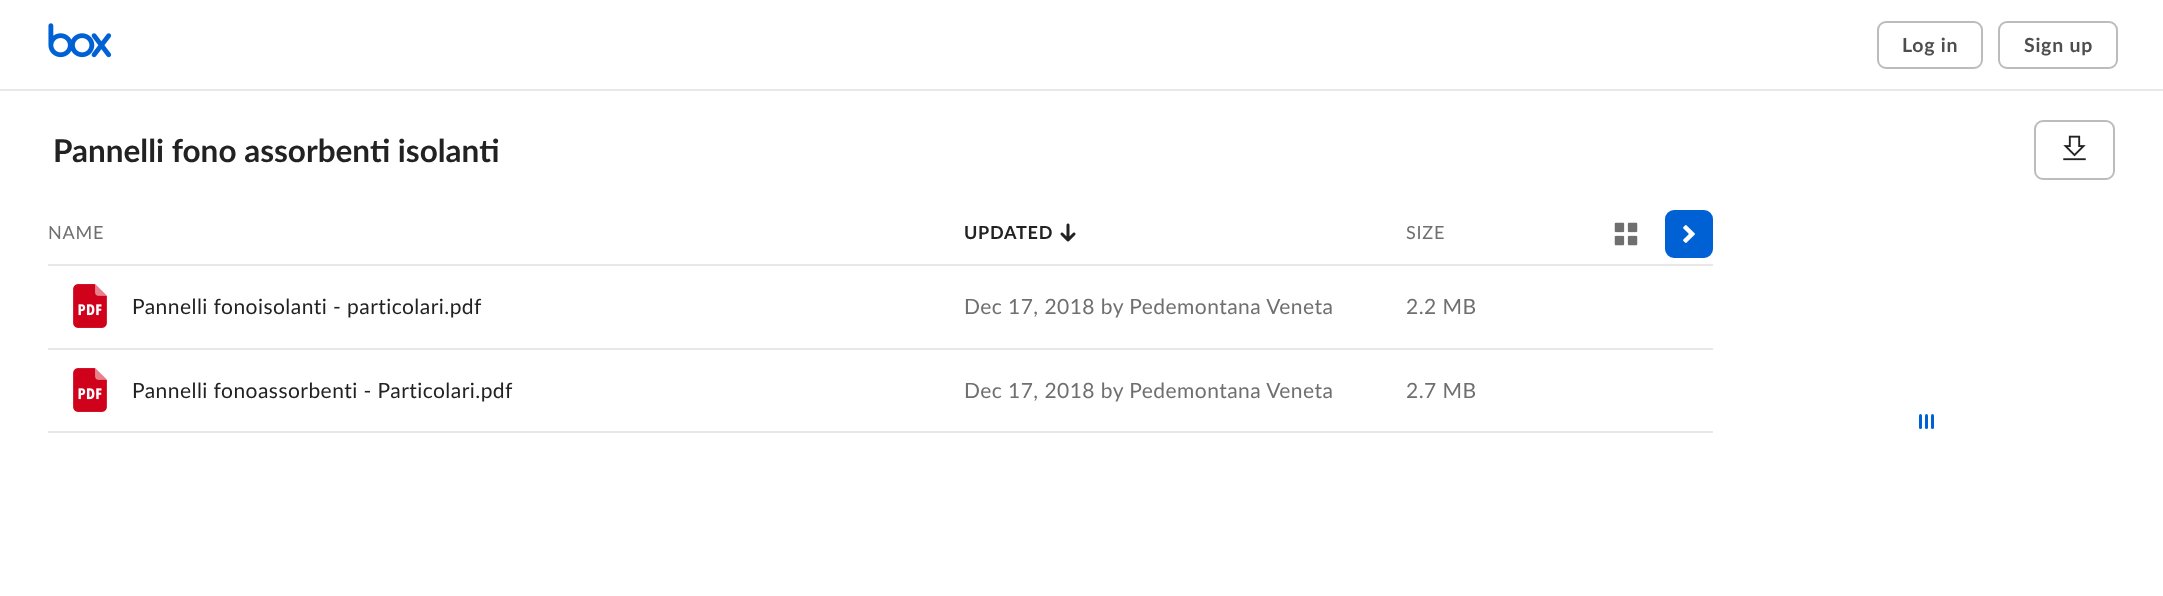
<svg xmlns="http://www.w3.org/2000/svg" width="2163" height="596" viewBox="0 0 2163 596">
  <style>
    .t1 { font: bold 19.5px Lato; letter-spacing: 0.75px; fill: #4e4e4e; }
    .t2 { font: bold 31.5px Lato; fill: #222; }
    .t3 { font: 18px Lato; letter-spacing: 0.75px; fill: #6f6f6f; }
    .t4 { font: bold 18px Lato; letter-spacing: 0.75px; fill: #222; }
    .t5 { font: 21px Lato; letter-spacing: 0.45px; fill: #222; }
    .t6 { font: 21px Lato; letter-spacing: 0.45px; fill: #6f6f6f; }
  </style>
  <rect width="100%" height="100%" fill="#fff"/>
  <rect x="0" y="89" width="2163" height="2" fill="#e8e8e8"/>
  <image x="48" y="23" width="64" height="35" href="images/1.png"/>
  <rect x="1878" y="22" width="104" height="46" rx="8" fill="none" stroke="#bcbcbc" stroke-width="2"/>
  <text x="1902" y="52" class="t1">Log in</text>
  <rect x="1999" y="22" width="118" height="46" rx="8" fill="none" stroke="#bcbcbc" stroke-width="2"/>
  <text x="2024" y="52" class="t1">Sign up</text>
  <text x="53" y="162" class="t2">Pannelli fono assorbenti isolanti</text>
  <rect x="2035" y="121" width="79" height="58" rx="8" fill="none" stroke="#bcbcbc" stroke-width="2"/>
  <image x="2063" y="135" width="23" height="26" href="images/2.png"/>
  <text x="48" y="239" class="t3">NAME</text>
  <text x="964" y="239" class="t4">UPDATED</text>
  <image x="1060" y="223" width="16" height="19" href="images/3.png"/>
  <text x="1406" y="239" class="t3">SIZE</text>
  <image x="1614" y="222" width="24" height="24" href="images/4.png"/>
  <rect x="1666" y="211" width="46" height="46" rx="8" fill="#0061d5" stroke="#0061d5" stroke-width="2"/>
  <image x="1683" y="225" width="12" height="18" href="images/5.png"/>
  <rect x="48" y="264" width="1665" height="2" fill="#e8e8e8"/>
  <image x="73" y="284" width="34" height="44" href="images/6.png"/>
  <text x="132" y="314" class="t5">Pannelli fonoisolanti - particolari.pdf</text>
  <text x="964" y="314" class="t6">Dec 17, 2018 by Pedemontana Veneta</text>
  <text x="1406" y="314" class="t6">2.2 MB</text>
  <rect x="48" y="348" width="1665" height="2" fill="#e8e8e8"/>
  <rect x="48" y="431" width="1665" height="2" fill="#e8e8e8"/>
  <image x="73" y="368" width="34" height="44" href="images/6.png"/>
  <text x="132" y="398" class="t5">Pannelli fonoassorbenti - Particolari.pdf</text>
  <text x="964" y="398" class="t6">Dec 17, 2018 by Pedemontana Veneta</text>
  <text x="1406" y="398" class="t6">2.7 MB</text>
  <rect x="1919" y="414" width="3" height="15" rx="1.5" fill="#0061d5"/>
  <rect x="1925" y="414" width="3" height="15" rx="1.5" fill="#0061d5"/>
  <rect x="1931" y="414" width="3" height="15" rx="1.5" fill="#0061d5"/>
</svg>
